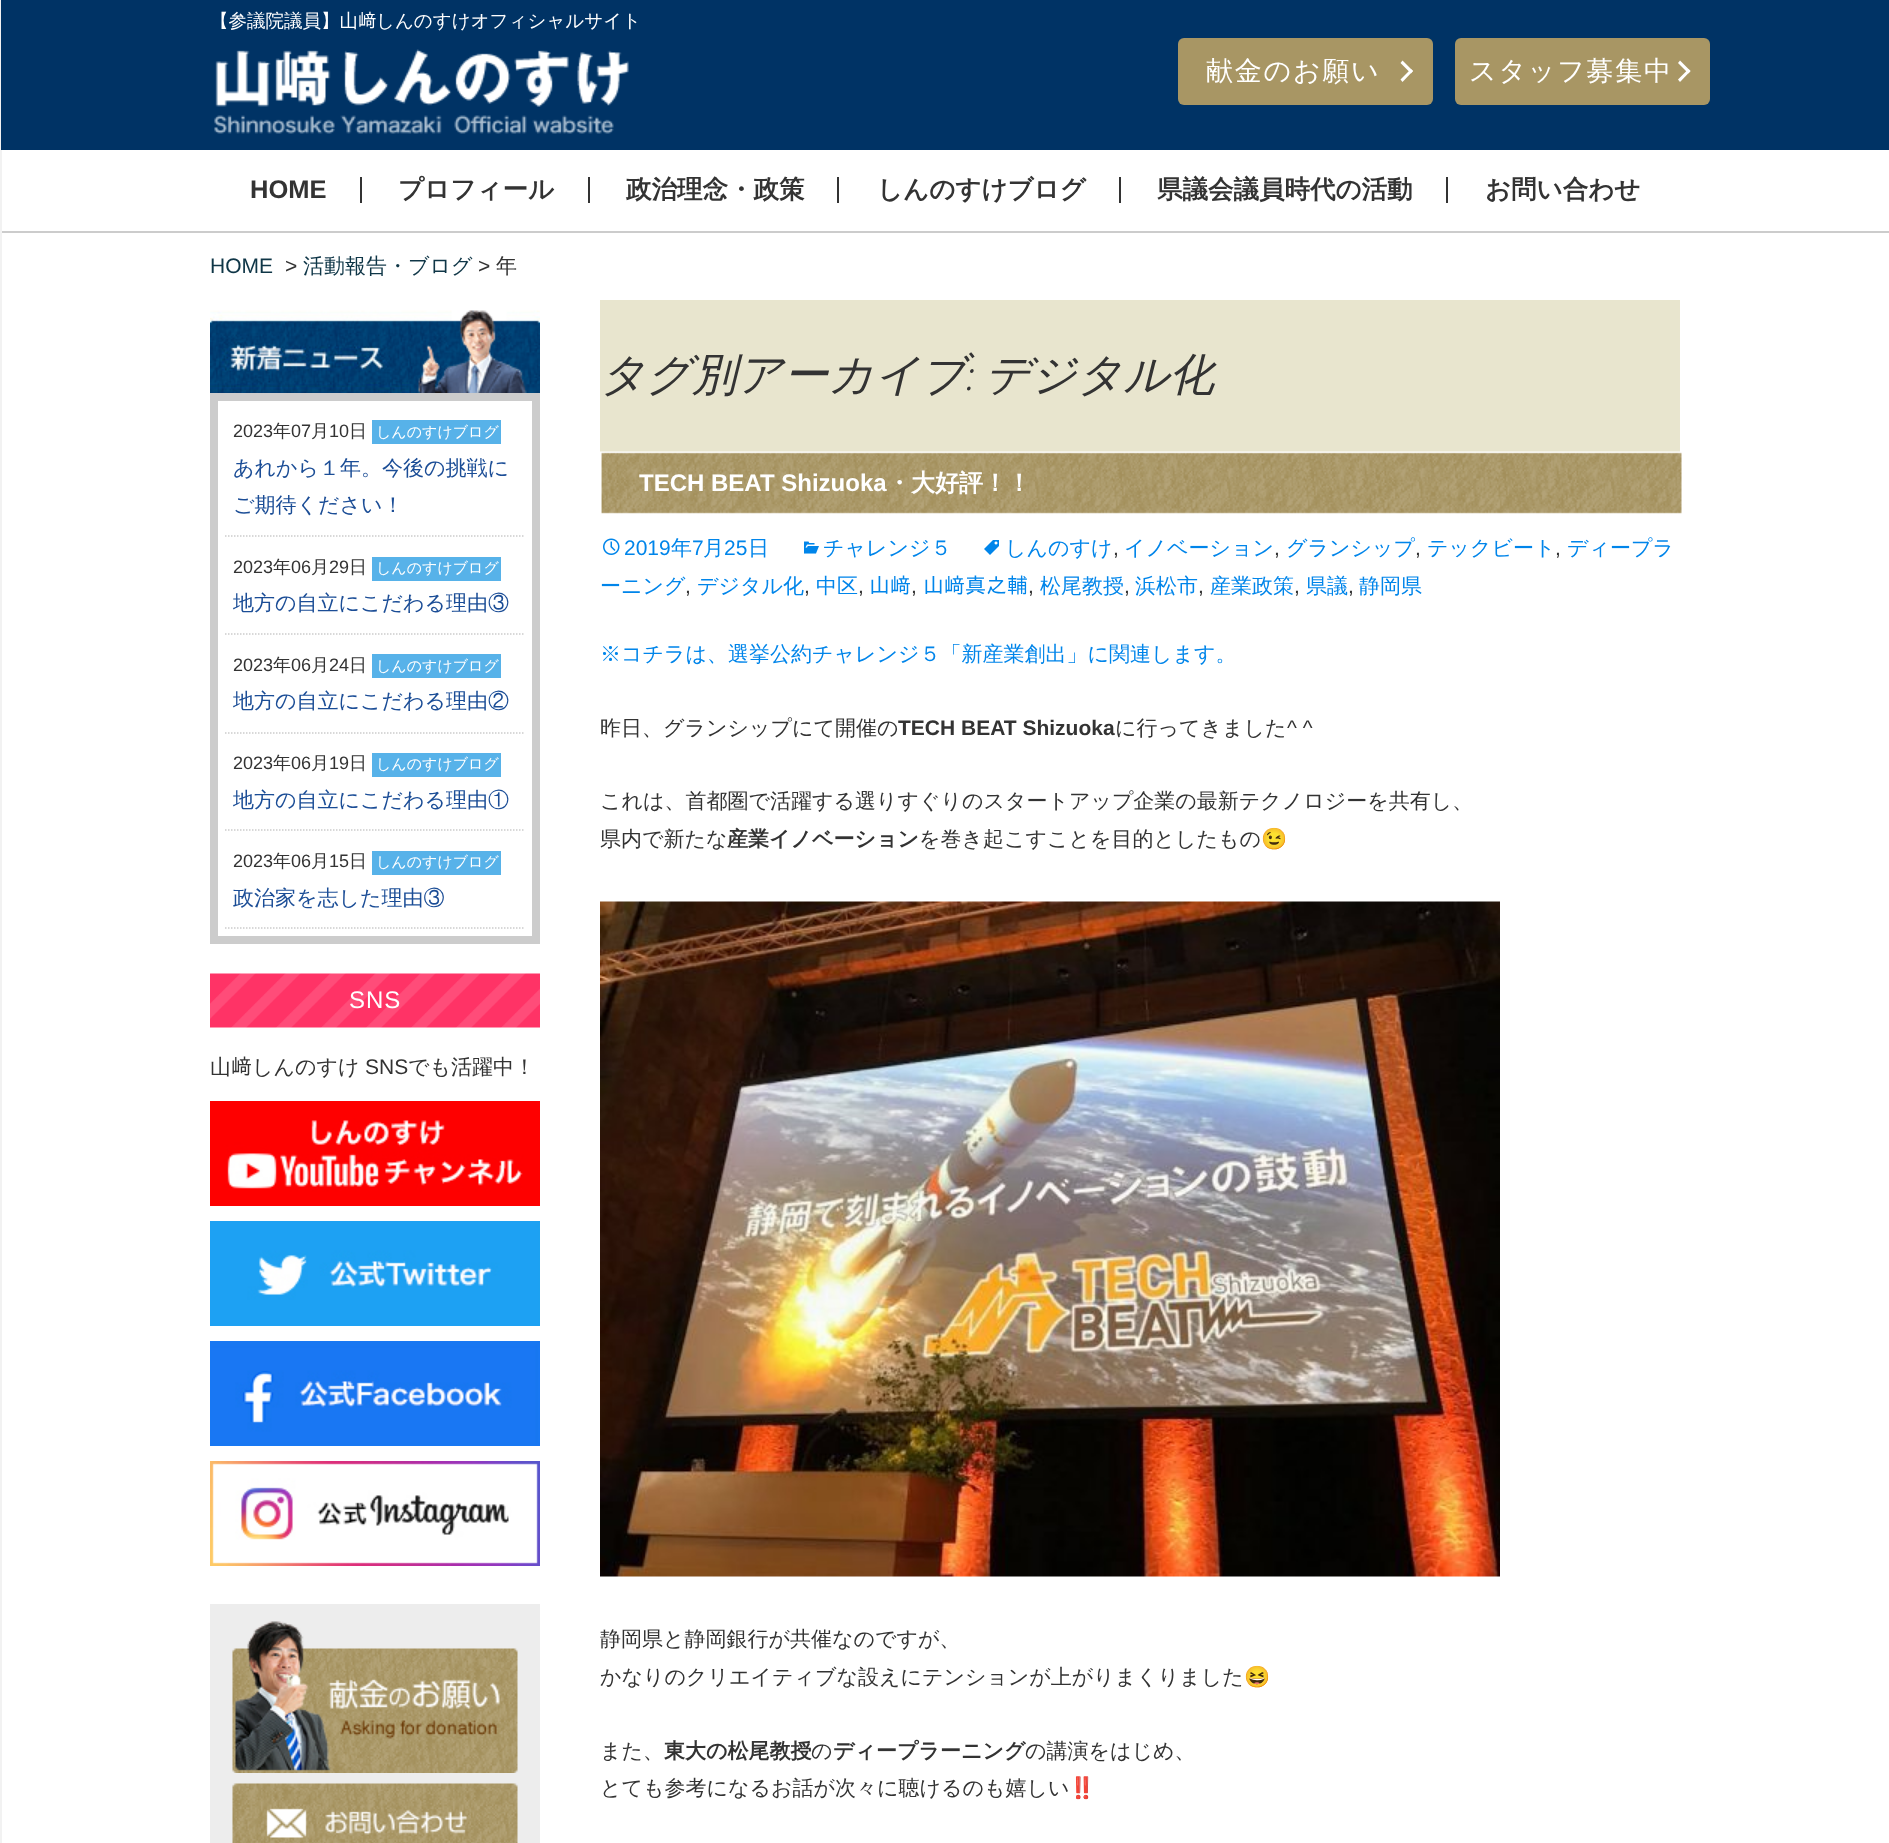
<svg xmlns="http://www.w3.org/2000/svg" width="1889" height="1843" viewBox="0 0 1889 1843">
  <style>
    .t1 { font: 500 18.5px WenQuanYi Zen Hei; fill: #fff; }
    .t2 { font: 18.5px IPAPGothic; fill: #fff; }
    .t3 { font: 500 27px WenQuanYi Zen Hei; letter-spacing: 1.75px; fill: #fff; }
    .t4 { font: bold 25.5px Liberation Sans; fill: #333; }
    .t5 { font: bold 25.5px WenQuanYi Zen Hei; fill: #333; }
    .t6 { font: 21px Liberation Sans; fill: #0f3647; }
    .t7 { font: 21px Liberation Sans; fill: #333; }
    .t8 { font: 500 21px WenQuanYi Zen Hei; fill: #0f3647; }
    .t9 { font: 500 21px WenQuanYi Zen Hei; fill: #333; }
    .t10 { font: 18px Liberation Sans; fill: #333; }
    .t11 { font: 500 18px WenQuanYi Zen Hei; fill: #333; }
    .t12 { font: 500 15px WenQuanYi Zen Hei; fill: #fff; }
    .t13 { font: 500 21px WenQuanYi Zen Hei; fill: #1b4d96; }
    .t14 { font: 24px Liberation Sans; letter-spacing: 1px; fill: #fff; }
    .t15 { font: 21px IPAPGothic; fill: #333; }
    .t16 { font: italic 500 45px WenQuanYi Zen Hei; fill: #333; }
    .t17 { font: italic 300 45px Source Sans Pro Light; fill: #333; }
    .t18 { font: bold 24px Liberation Sans; fill: #fff; }
    .t19 { font: bold 24px WenQuanYi Zen Hei; fill: #fff; }
    .t20 { font: 500 21px WenQuanYi Zen Hei; fill: #0085ea; }
    .t21 { font: 21px IPAPGothic; fill: #0085ea; }
    .t22 { font: 21px Liberation Sans; fill: #0085ea; }
    .t23 { font: bold 21px Liberation Sans; fill: #333; }
    .t24 { font: bold 21px WenQuanYi Zen Hei; fill: #333; }
    .t25 { font: 21px Noto Color Emoji; fill: #333; }
  </style>
  <rect width="100%" height="100%" fill="#fff"/>
  <rect x="0" y="0" width="2" height="1843" fill="#f2f2f2"/>
  <rect x="1" y="0" width="1888" height="150" fill="#003365"/>
  <text x="210" y="27" class="t1">【参議院議員】山</text>
  <text x="358" y="27" class="t2">﨑</text>
  <text x="376" y="27" class="t1">しんのすけオフィシャルサイト</text>
  <image x="214" y="49" width="415" height="85" href="images/1.png"/>
  <rect x="1178" y="38" width="255" height="67" rx="6" fill="#a89664"/>
  <text x="1206" y="80" class="t3">献金のお願い</text>
  <path d="M1402.5 60.5L1413 71L1411 73.5L1400.5 63Z" fill="#fff"/>
  <path d="M1411 69L1413 71L1402.5 82L1400.5 79.5Z" fill="#fff"/>
  <rect x="1455" y="38" width="255" height="67" rx="6" fill="#a89664"/>
  <text x="1469" y="80" class="t3">スタッフ募集中</text>
  <path d="M1680 60.5L1690.5 71L1688.5 73.5L1678 63Z" fill="#fff"/>
  <path d="M1688.5 69L1690.5 71L1680 82L1678 79.5Z" fill="#fff"/>
  <rect x="2" y="231" width="1887" height="2" fill="#ccc"/>
  <rect x="360" y="177" width="2" height="26" fill="#333"/>
  <text x="250" y="198" class="t4">HOME</text>
  <rect x="588" y="177" width="2" height="26" fill="#333"/>
  <text x="398" y="198" class="t5">プロフィール</text>
  <rect x="837" y="177" width="2" height="26" fill="#333"/>
  <text x="626" y="198" class="t5">政治理念・政策</text>
  <rect x="1119" y="177" width="2" height="26" fill="#333"/>
  <text x="877" y="198" class="t5">しんのすけブログ</text>
  <rect x="1446" y="177" width="2" height="26" fill="#333"/>
  <text x="1157" y="198" class="t5">県議会議員時代の活動</text>
  <text x="1485" y="198" class="t5">お問い合わせ</text>
  <text x="210" y="273" class="t6">HOME</text>
  <text x="285" y="273" class="t7">&gt;</text>
  <text x="303" y="273" class="t8">活動報告・ブログ</text>
  <text x="478" y="273" class="t7">&gt;</text>
  <text x="496" y="273" class="t9">年</text>
  <image x="210" y="310" width="330" height="83" href="images/2.png"/>
  <rect x="214" y="397" width="322" height="543" fill="none" stroke="#ccc" stroke-width="8"/>
  <path d="M225 536H525" fill="none" stroke="#ccc" stroke-width="1.5" stroke-dasharray="1.5 1.5"/>
  <text x="233" y="437" class="t10">2023</text>
  <text x="273" y="437" class="t11">年</text>
  <text x="291" y="437" class="t10">07</text>
  <text x="311" y="437" class="t11">月</text>
  <text x="329" y="437" class="t10">10</text>
  <text x="349" y="437" class="t11">日</text>
  <rect x="372" y="420" width="129" height="24" fill="#57b2e9"/>
  <text x="376" y="437" class="t12">しんのすけブログ</text>
  <text x="233" y="475" class="t13">あれから１年。今後の挑戦に</text>
  <text x="233" y="512" class="t13">ご期待ください！</text>
  <path d="M225 634H525" fill="none" stroke="#ccc" stroke-width="1.5" stroke-dasharray="1.5 1.5"/>
  <text x="233" y="573" class="t10">2023</text>
  <text x="273" y="573" class="t11">年</text>
  <text x="291" y="573" class="t10">06</text>
  <text x="311" y="573" class="t11">月</text>
  <text x="329" y="573" class="t10">29</text>
  <text x="349" y="573" class="t11">日</text>
  <rect x="372" y="557" width="129" height="24" fill="#57b2e9"/>
  <text x="376" y="573" class="t12">しんのすけブログ</text>
  <text x="233" y="610" class="t13">地方の自立にこだわる理由③</text>
  <path d="M225 733H525" fill="none" stroke="#ccc" stroke-width="1.5" stroke-dasharray="1.5 1.5"/>
  <text x="233" y="671" class="t10">2023</text>
  <text x="273" y="671" class="t11">年</text>
  <text x="291" y="671" class="t10">06</text>
  <text x="311" y="671" class="t11">月</text>
  <text x="329" y="671" class="t10">24</text>
  <text x="349" y="671" class="t11">日</text>
  <rect x="372" y="654" width="129" height="24" fill="#57b2e9"/>
  <text x="376" y="671" class="t12">しんのすけブログ</text>
  <text x="233" y="708" class="t13">地方の自立にこだわる理由②</text>
  <path d="M225 830H525" fill="none" stroke="#ccc" stroke-width="1.5" stroke-dasharray="1.5 1.5"/>
  <text x="233" y="769" class="t10">2023</text>
  <text x="273" y="769" class="t11">年</text>
  <text x="291" y="769" class="t10">06</text>
  <text x="311" y="769" class="t11">月</text>
  <text x="329" y="769" class="t10">19</text>
  <text x="349" y="769" class="t11">日</text>
  <rect x="372" y="753" width="129" height="24" fill="#57b2e9"/>
  <text x="376" y="769" class="t12">しんのすけブログ</text>
  <text x="233" y="807" class="t13">地方の自立にこだわる理由①</text>
  <path d="M225 928H525" fill="none" stroke="#ccc" stroke-width="1.5" stroke-dasharray="1.5 1.5"/>
  <text x="233" y="867" class="t10">2023</text>
  <text x="273" y="867" class="t11">年</text>
  <text x="291" y="867" class="t10">06</text>
  <text x="311" y="867" class="t11">月</text>
  <text x="329" y="867" class="t10">15</text>
  <text x="349" y="867" class="t11">日</text>
  <rect x="372" y="851" width="129" height="24" fill="#57b2e9"/>
  <text x="376" y="867" class="t12">しんのすけブログ</text>
  <text x="233" y="905" class="t13">政治家を志した理由③</text>
  <image x="210" y="973" width="330" height="55" href="images/3.png"/>
  <text x="349" y="1008" class="t14">SNS</text>
  <text x="210" y="1074" class="t9">山</text>
  <text x="231" y="1074" class="t15">﨑</text>
  <text x="252" y="1074" class="t9">しんのすけ</text>
  <text x="365" y="1074" class="t7">SNS</text>
  <text x="408" y="1074" class="t9">でも活躍中！</text>
  <image x="210" y="1101" width="330" height="105" href="images/4.png"/>
  <image x="210" y="1221" width="330" height="105" href="images/5.png"/>
  <image x="210" y="1341" width="330" height="105" href="images/6.png"/>
  <image x="210" y="1461" width="330" height="105" href="images/7.png"/>
  <rect x="210" y="1604" width="330" height="239" fill="#ededed"/>
  <image x="232" y="1621" width="286" height="152" href="images/8.png"/>
  <image x="232" y="1783" width="286" height="60" href="images/9.png"/>
  <rect x="600" y="300" width="1080" height="152" fill="#e8e5ce"/>
  <text x="600" y="390" class="t16">タグ別アーカイブ</text>
  <text x="985" y="390" class="t16">デジタル化</text>
  <text x="966" y="390" class="t17">:</text>
  <image x="600" y="451" width="1082" height="63" href="images/10.png"/>
  <text x="639" y="491" class="t18">TECH BEAT Shizuoka</text>
  <text x="887" y="491" class="t19">・大好評！！</text>
  <image x="984" y="540" width="15" height="15" href="images/11.png"/>
  <text x="1005" y="555" class="t20">しんのすけ</text>
  <text x="1113" y="555" class="t7">,</text>
  <text x="1124" y="555" class="t20">イノベーション</text>
  <text x="1274" y="555" class="t7">,</text>
  <text x="1286" y="555" class="t20">グランシップ</text>
  <text x="1415" y="555" class="t7">,</text>
  <text x="1427" y="555" class="t20">テックビート</text>
  <text x="1555" y="555" class="t7">,</text>
  <text x="1567" y="555" class="t20">ディープラ</text>
  <text x="600" y="593" class="t20">ーニング</text>
  <text x="685" y="593" class="t7">,</text>
  <text x="697" y="593" class="t20">デジタル化</text>
  <text x="804" y="593" class="t7">,</text>
  <text x="816" y="593" class="t20">中区</text>
  <text x="858" y="593" class="t7">,</text>
  <text x="869" y="593" class="t21">山﨑</text>
  <text x="911" y="593" class="t7">,</text>
  <text x="923" y="593" class="t21">山﨑真之輔</text>
  <text x="1028" y="593" class="t7">,</text>
  <text x="1040" y="593" class="t20">松尾教授</text>
  <text x="1124" y="593" class="t7">,</text>
  <text x="1135" y="593" class="t20">浜松市</text>
  <text x="1198" y="593" class="t7">,</text>
  <text x="1210" y="593" class="t20">産業政策</text>
  <text x="1294" y="593" class="t7">,</text>
  <text x="1306" y="593" class="t20">県議</text>
  <text x="1348" y="593" class="t7">,</text>
  <text x="1359" y="593" class="t20">静岡県</text>
  <image x="603" y="538" width="17" height="17" href="images/12.png"/>
  <text x="624" y="555" class="t22">2019</text>
  <text x="671" y="555" class="t20">年</text>
  <text x="692" y="555" class="t22">7</text>
  <text x="703" y="555" class="t20">月</text>
  <text x="724" y="555" class="t22">25</text>
  <text x="748" y="555" class="t20">日</text>
  <image x="804" y="541" width="15" height="13" href="images/13.png"/>
  <text x="823" y="555" class="t20">チャレンジ５</text>
  <text x="600" y="661" class="t20">※コチラは、選挙公約チャレンジ５「新産業創出」に関連します。</text>
  <text x="600" y="735" class="t9">昨日、グランシップにて開催の</text>
  <text x="898" y="735" class="t23">TECH BEAT Shizuoka</text>
  <text x="1115" y="735" class="t9">に行ってきました</text>
  <text x="1287" y="735" class="t7">^ ^</text>
  <text x="600" y="808" class="t9">これは、首都圏で活躍する選りすぐりのスタートアップ企業の最新テクノロジーを共有し、</text>
  <text x="600" y="846" class="t9">県内で新たな</text>
  <text x="727" y="846" class="t24">産業イノベーション</text>
  <text x="919" y="846" class="t9">を巻き起こすことを目的としたもの</text>
  <text x="1261" y="846" class="t25">😉</text>
  <image x="600" y="901" width="900" height="676" href="images/14.png"/>
  <text x="600" y="1646" class="t9">静岡県と静岡銀行が共催なのですが、</text>
  <text x="600" y="1684" class="t9">かなりのクリエイティブな設えにテンションが上がりまくりました</text>
  <text x="1244" y="1684" class="t25">😆</text>
  <text x="600" y="1758" class="t9">また、</text>
  <text x="664" y="1758" class="t24">東大の松尾教授</text>
  <text x="811" y="1758" class="t9">の</text>
  <text x="833" y="1758" class="t24">ディープラーニング</text>
  <text x="1025" y="1758" class="t9">の講演をはじめ、</text>
  <text x="600" y="1795" class="t9">とても参考になるお話が次々に聴けるのも嬉しい</text>
  <text x="1069" y="1795" class="t25">‼️</text>
</svg>
